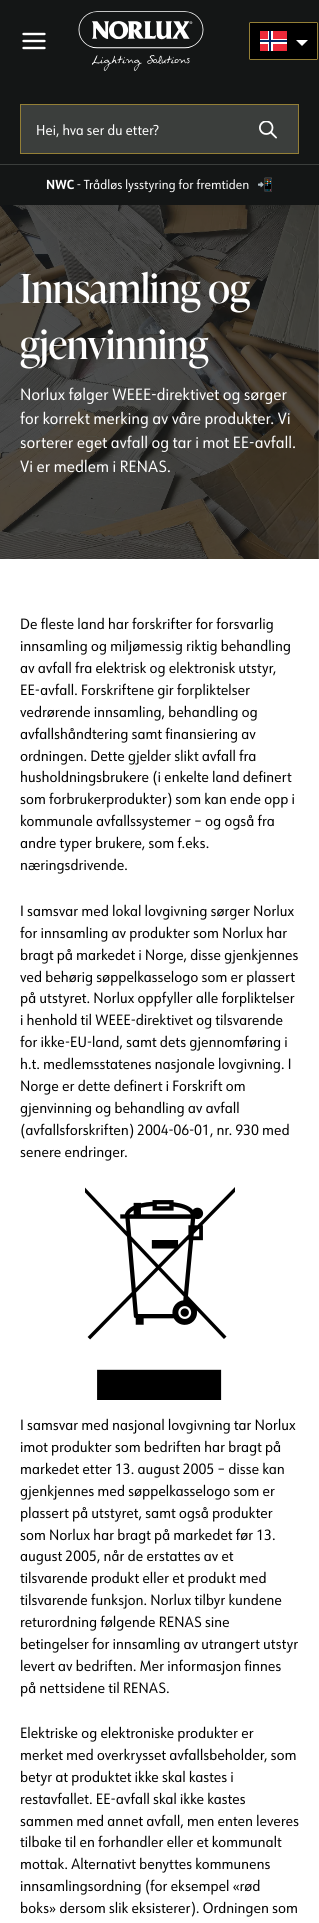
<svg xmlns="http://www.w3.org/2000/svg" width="319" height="1923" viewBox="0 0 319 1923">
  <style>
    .t1 { font: 13px Noto Color Emoji; fill: #fff; }
    .t2 { font: 40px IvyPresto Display; fill: #fff; }
  </style>
  <rect width="100%" height="100%" fill="#fff"/>
  <image x="0" y="205" width="319" height="354" href="images/7.png"/>
  <rect x="0" y="-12" width="319" height="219" fill="#00000014" filter="blur(4px)"/>
  <rect x="0" y="0" width="319" height="164" fill="#141616"/>
  <image x="22" y="32" width="24" height="18" href="images/1.png"/>
  <image x="78" y="11" width="126" height="60" href="images/2.png"/>
  <rect x="249.5" y="22.5" width="68" height="37" rx="0.5" fill="#000" stroke="#947f36"/>
  <rect x="260" y="31" width="27" height="20" fill="#ed2939"/>
  <rect x="268" y="31" width="5" height="20" fill="#fff"/>
  <rect x="260" y="39" width="27" height="5" fill="#fff"/>
  <rect x="269" y="31" width="2" height="20" fill="#002664"/>
  <rect x="260" y="40" width="27" height="2" fill="#002664"/>
  <path d="M296 40H308L302 46Z" fill="#fff"/>
  <rect x="0" y="164" width="319" height="1" fill="#3b3e3c"/>
  <rect x="20.5" y="104.5" width="278" height="49" fill="#3b3e3c" stroke="#947f36"/>
  <image x="37" y="124" width="122" height="14" href="images/3.png"/>
  <image x="259" y="121" width="18" height="18" href="images/4.png"/>
  <rect x="0" y="165" width="319" height="40" fill="#141616"/>
  <image x="46" y="179" width="28" height="11" href="images/5.png"/>
  <image x="77" y="179" width="172" height="14" href="images/6.png"/>
  <text x="257" y="189" class="t1">📲</text>
  <text x="20" y="303" class="t2">Innsamling og</text>
  <text x="20" y="359" class="t2">gjenvinning</text>
  <image x="21" y="387" width="266" height="17" href="images/8.png"/>
  <image x="20" y="411" width="270" height="17" href="images/9.png"/>
  <image x="20" y="435" width="275" height="17" href="images/10.png"/>
  <image x="20" y="459" width="150" height="14" href="images/11.png"/>
  <image x="21" y="617" width="252" height="16" href="images/12.png"/>
  <image x="20" y="639" width="270" height="16" href="images/13.png"/>
  <image x="20" y="661" width="256" height="16" href="images/14.png"/>
  <image x="21" y="683" width="229" height="16" href="images/15.png"/>
  <image x="20" y="705" width="237" height="16" href="images/16.png"/>
  <image x="20" y="727" width="236" height="16" href="images/17.png"/>
  <image x="20" y="749" width="236" height="16" href="images/18.png"/>
  <image x="21" y="770" width="271" height="16" href="images/19.png"/>
  <image x="20" y="792" width="274" height="16" href="images/20.png"/>
  <image x="21" y="814" width="253" height="16" href="images/21.png"/>
  <image x="20" y="836" width="189" height="16" href="images/22.png"/>
  <image x="21" y="858" width="106" height="16" href="images/23.png"/>
  <image x="21" y="904" width="273" height="16" href="images/24.png"/>
  <image x="20" y="926" width="267" height="16" href="images/25.png"/>
  <image x="21" y="948" width="277" height="16" href="images/26.png"/>
  <image x="20" y="970" width="275" height="16" href="images/27.png"/>
  <image x="21" y="991" width="274" height="16" href="images/28.png"/>
  <image x="20" y="1013" width="263" height="16" href="images/29.png"/>
  <image x="20" y="1035" width="267" height="16" href="images/30.png"/>
  <image x="21" y="1057" width="270" height="16" href="images/31.png"/>
  <image x="21" y="1079" width="224" height="16" href="images/32.png"/>
  <image x="20" y="1101" width="219" height="16" href="images/33.png"/>
  <image x="21" y="1123" width="268" height="16" href="images/34.png"/>
  <image x="20" y="1145" width="107" height="16" href="images/35.png"/>
  <image x="85" y="1187" width="150" height="213" href="images/36.png"/>
  <image x="21" y="1418" width="275" height="16" href="images/37.png"/>
  <image x="20" y="1440" width="261" height="16" href="images/38.png"/>
  <image x="21" y="1462" width="263" height="16" href="images/39.png"/>
  <image x="20" y="1484" width="255" height="16" href="images/40.png"/>
  <image x="21" y="1506" width="252" height="16" href="images/41.png"/>
  <image x="20" y="1528" width="255" height="16" href="images/42.png"/>
  <image x="20" y="1549" width="214" height="16" href="images/43.png"/>
  <image x="20" y="1571" width="246" height="16" href="images/44.png"/>
  <image x="20" y="1593" width="262" height="16" href="images/45.png"/>
  <image x="21" y="1615" width="208" height="16" href="images/46.png"/>
  <image x="21" y="1637" width="277" height="16" href="images/47.png"/>
  <image x="21" y="1659" width="260" height="16" href="images/48.png"/>
  <image x="21" y="1681" width="148" height="16" href="images/49.png"/>
  <image x="21" y="1726" width="233" height="16" href="images/50.png"/>
  <image x="21" y="1748" width="275" height="16" href="images/51.png"/>
  <image x="21" y="1770" width="212" height="16" href="images/52.png"/>
  <image x="21" y="1792" width="224" height="13" href="images/53.png"/>
  <image x="20" y="1814" width="279" height="15" href="images/54.png"/>
  <image x="20" y="1835" width="262" height="13" href="images/55.png"/>
  <image x="21" y="1857" width="249" height="16" href="images/56.png"/>
  <image x="20" y="1879" width="240" height="16" href="images/57.png"/>
  <image x="21" y="1901" width="276" height="16" href="images/58.png"/>
</svg>
